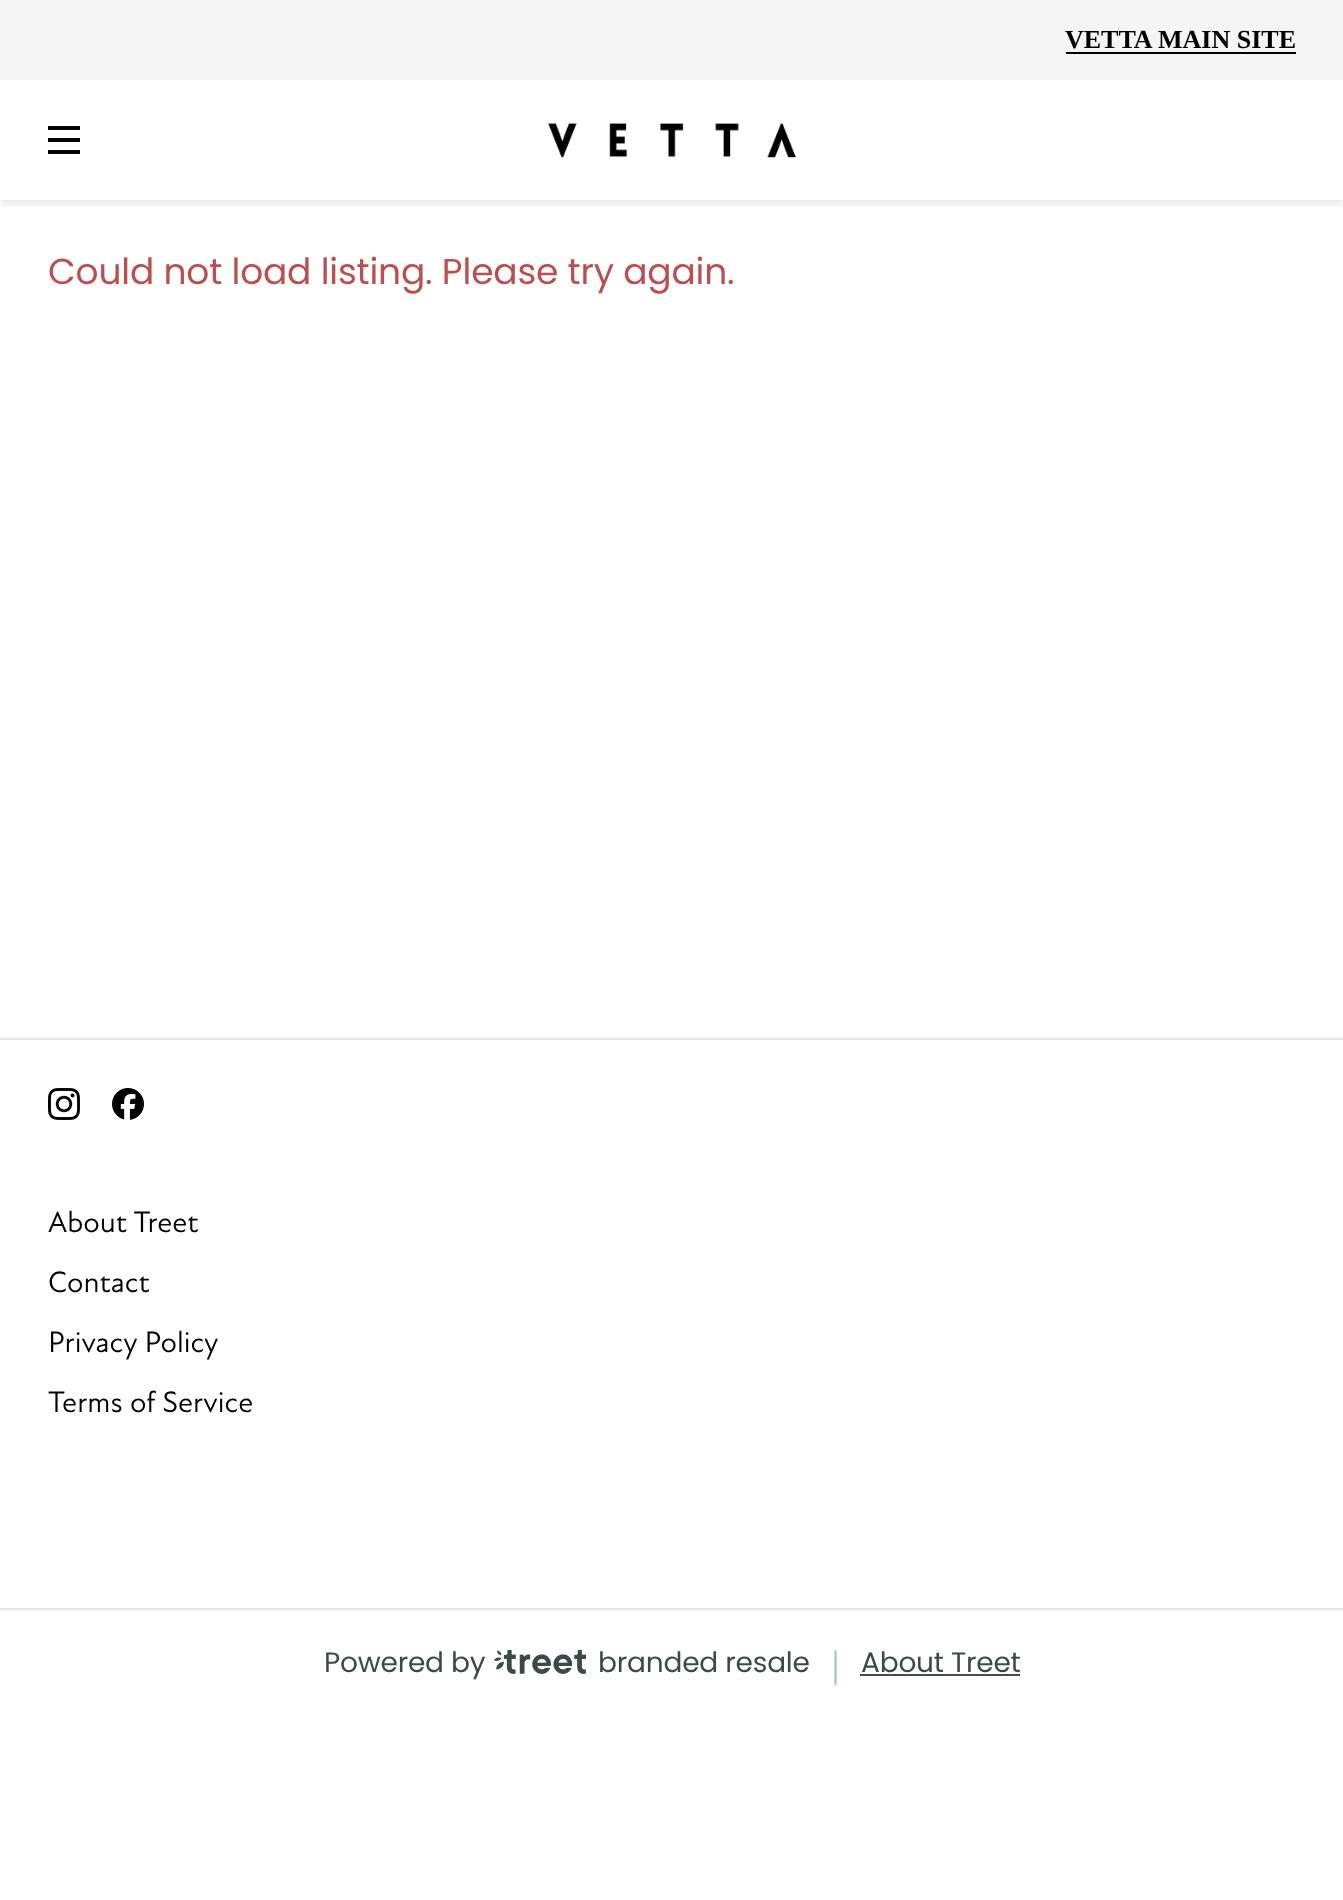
<svg xmlns="http://www.w3.org/2000/svg" width="1343" height="1900" viewBox="0 0 1343 1900">
  <style>
    .t1 { font: bold 26px Liberation Serif; fill: #000; }
    .t2 { font: 36px Poppins; letter-spacing: -0.2px; fill: #bb4e4e; }
    .t3 { font: 30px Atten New; fill: #000; }
    .t4 { font: 28px Poppins; letter-spacing: -0.2px; fill: #3d4949; }
    .t5 { font: 36px Atten New; letter-spacing: -0.2px; fill: #b0c1c5; }
  </style>
  <defs>
    <clipPath id="clip1"><rect x="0" y="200" width="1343" height="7"/></clipPath>
  </defs>
  <rect width="100%" height="100%" fill="#fff"/>
  <rect x="0" y="0" width="1343" height="80" fill="#f5f5f5"/>
  <text x="1065" y="48" class="t1">VETTA</text>
  <rect x="1066" y="52" width="230" height="2" fill="#000"/>
  <text x="1158" y="48" class="t1">MAIN SITE</text>
  <g clip-path="url(#clip1)">
    <rect x="0" y="84" width="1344" height="120" fill="#0000001a" filter="blur(4px)"/>
  </g>
  <rect x="48" y="126" width="32" height="4" fill="#000"/>
  <rect x="48" y="138" width="32" height="4" fill="#000"/>
  <rect x="48" y="150" width="32" height="4" fill="#000"/>
  <image x="548" y="123" width="248" height="35" href="images/1.png"/>
  <text x="48" y="284" class="t2">Could not load listing. Please try again.</text>
  <rect x="0" y="1038" width="1343" height="2" fill="#e7e7e7"/>
  <image x="48" y="1088" width="32" height="32" href="images/2.png"/>
  <image x="112" y="1088" width="32" height="32" href="images/3.png"/>
  <text x="48" y="1232" class="t3">About Treet</text>
  <text x="48" y="1292" class="t3">Contact</text>
  <text x="48" y="1352" class="t3">Privacy Policy</text>
  <text x="48" y="1412" class="t3">Terms of Service</text>
  <rect x="0" y="1608" width="1343" height="2" fill="#e7e7e7"/>
  <text x="324" y="1672" class="t4">Powered by</text>
  <image x="494" y="1650" width="92" height="24" href="images/4.png"/>
  <text x="598" y="1672" class="t4">branded resale</text>
  <text x="831" y="1676" class="t5">|</text>
  <text x="861" y="1672" class="t4">About Treet</text>
  <rect x="860" y="1674" width="160" height="2" fill="#4a4a4a"/>
</svg>
